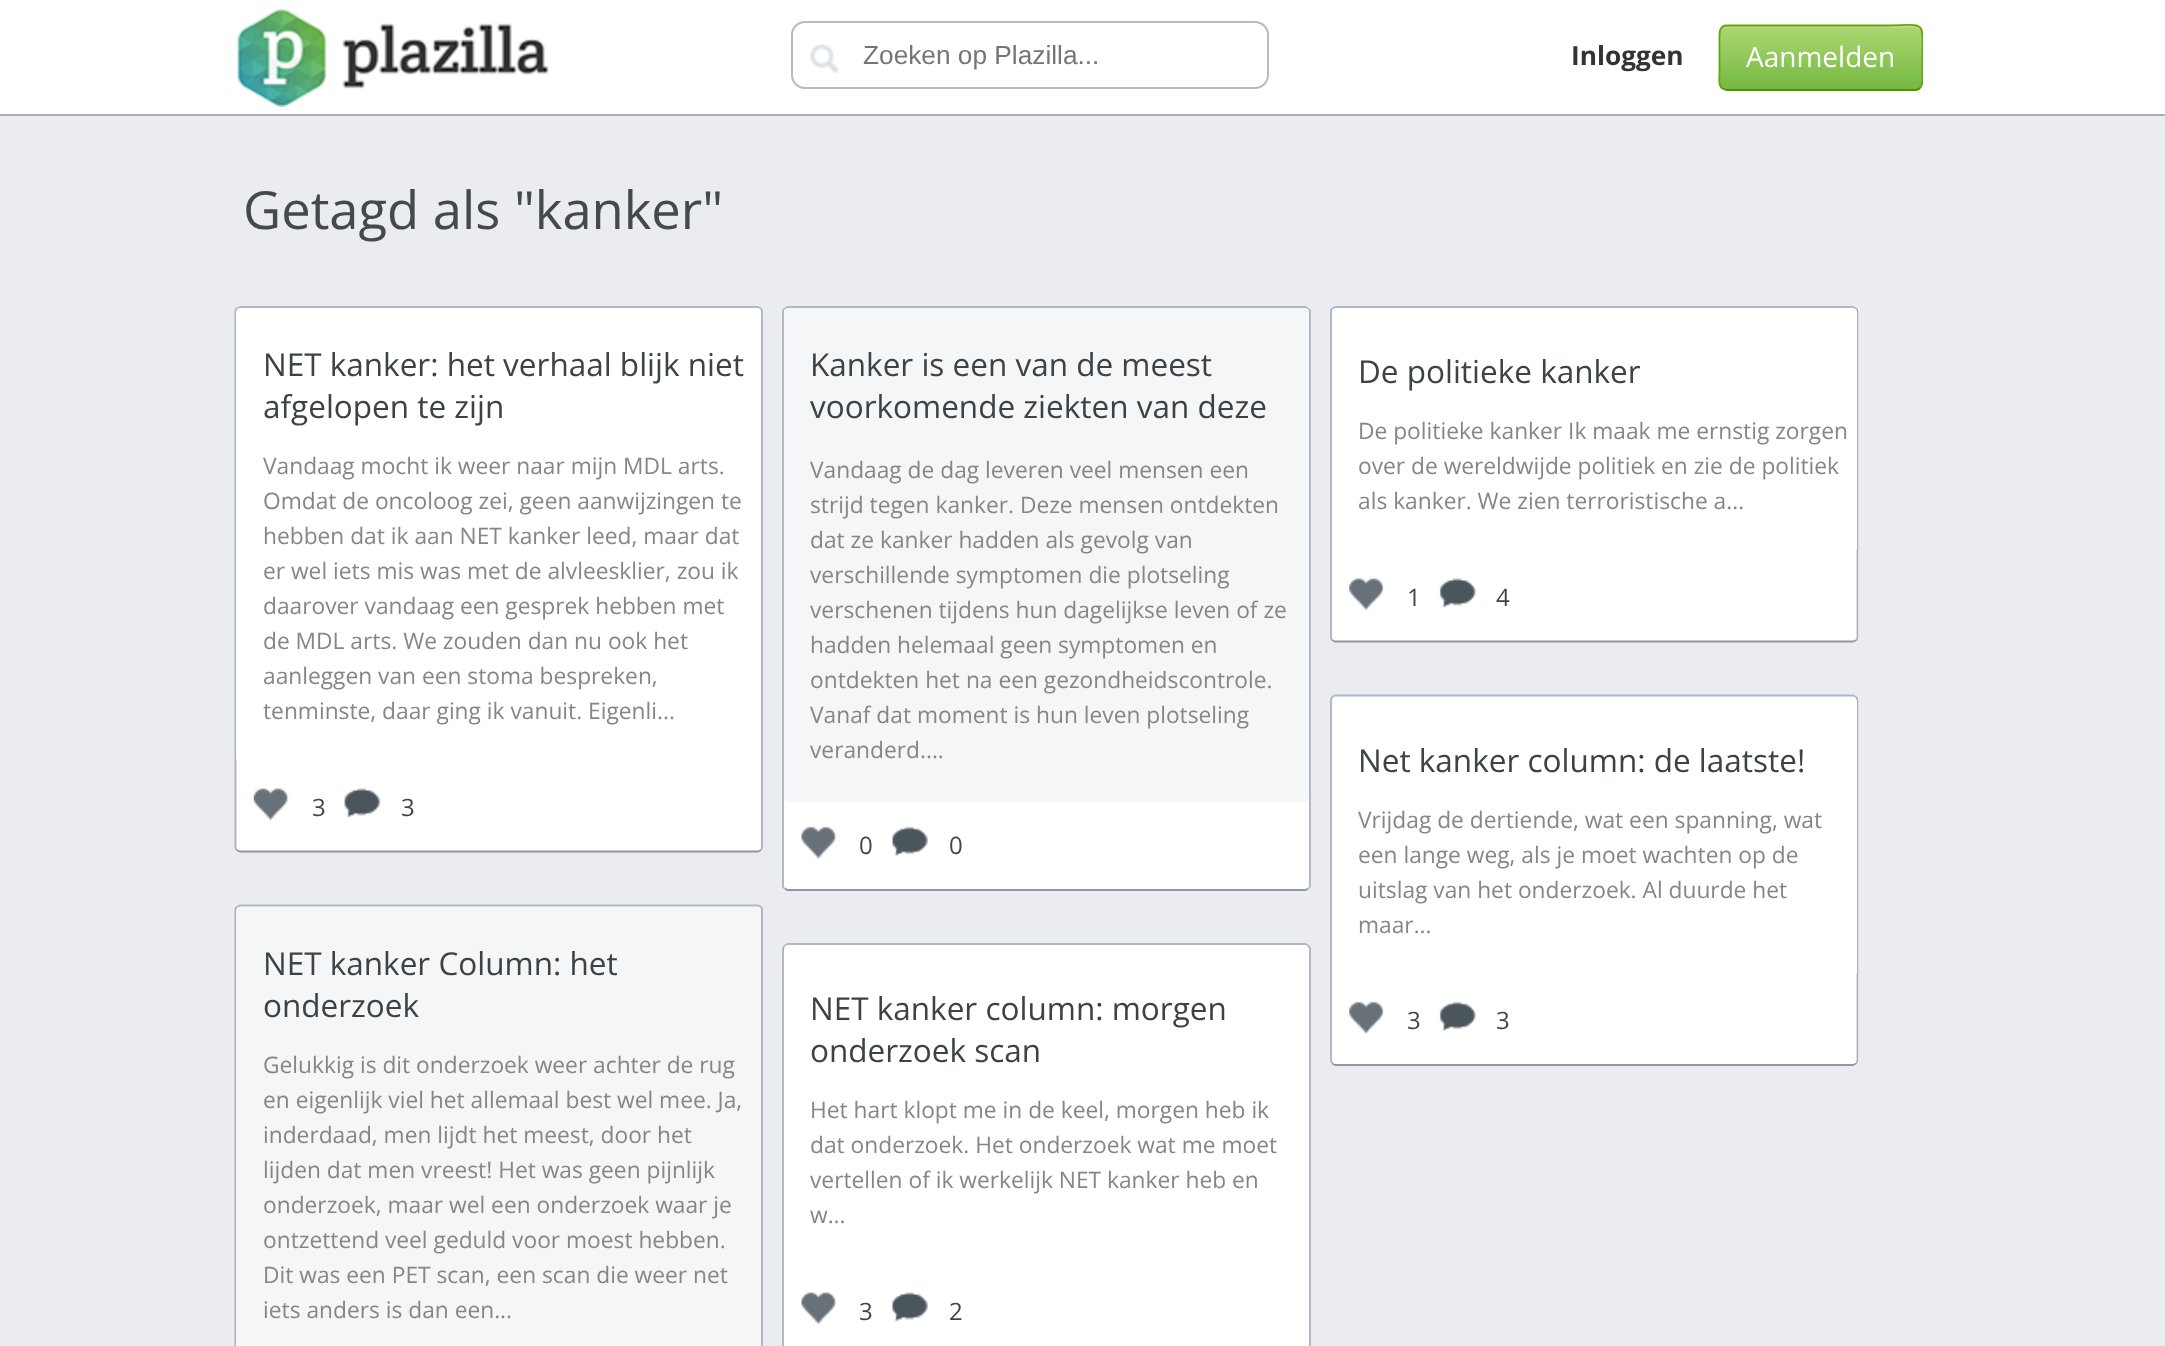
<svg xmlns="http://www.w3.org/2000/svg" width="2165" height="1346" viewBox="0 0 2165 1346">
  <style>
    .t1 { font: 26.25px Liberation Sans; fill: #757575; }
    .t2 { font: bold 26.25px Open Sans; fill: #333; }
    .t3 { font: 28px Open Sans; fill: #fff; }
    .t4 { font: 52.5px Open Sans; fill: #43494d; }
    .t5 { font: 31.5px Open Sans; fill: #3c4246; }
    .t6 { font: 22.75px Open Sans; fill: #868686; }
    .t7 { font: 24px Open Sans; fill: #444; }
  </style>
  <defs>
    <clipPath id="clip1"><rect x="1719" y="25" width="204" height="66" rx="9"/></clipPath>
    <linearGradient id="g1" gradientUnits="userSpaceOnUse" x1="1821" y1="26" x2="1821" y2="89"><stop offset="0" stop-color="#add771"/><stop offset="1" stop-color="#75b943"/></linearGradient>
    <clipPath id="clip2"><rect x="1537" y="9" width="386" height="121"/></clipPath>
    <clipPath id="clip3"><rect x="236" y="308" width="525" height="543" rx="4"/></clipPath>
    <clipPath id="clip4"><rect x="784" y="308" width="525" height="581" rx="4"/></clipPath>
    <clipPath id="clip5"><rect x="1332" y="308" width="525" height="333" rx="4"/></clipPath>
    <clipPath id="clip6"><rect x="1332" y="697" width="525" height="367" rx="4"/></clipPath>
    <clipPath id="clip7"><rect x="236" y="907" width="525" height="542" rx="4"/></clipPath>
    <clipPath id="clip8"><rect x="784" y="945" width="525" height="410" rx="4"/></clipPath>
  </defs>
  <rect width="100%" height="100%" fill="#eaecef"/>
  <rect x="0" y="0" width="2165" height="114" fill="#fff"/>
  <rect x="0" y="114" width="2165" height="2" fill="#adadad"/>
  <image x="237" y="9" width="312" height="98" href="images/1.png"/>
  <rect x="792" y="22" width="476" height="66" rx="13" fill="none" stroke="#b6bac5" stroke-width="2"/>
  <image x="810" y="44" width="29" height="30" href="images/2.png"/>
  <text x="863" y="64" class="t1">Zoeken op Plazilla...</text>
  <text x="1571" y="65" class="t2">Inloggen</text>
  <g clip-path="url(#clip1)">
    <rect x="1719" y="26" width="204" height="63" fill="url(#g1)"/>
  </g>
  <path d="M1727 28H1914C1918 28 1922 31 1922 35V33C1922 29 1919 26 1915 26H1727C1723 26 1720 29 1720 33V35C1720 31 1723 28 1727 28Z" fill="#ffffff26"/>
  <path d="M1920 88C1919 89 1917 90 1915.5 90H1726.5L1721.5 88" fill="none" stroke="#4d9200" stroke-width="1.8"/>
  <g clip-path="url(#clip2)">
    <path d="M1721.5 88C1718 84.5 1719.5 78.5 1719.5 74V41.5C1719.5 35.5 1718 25.5 1727 25.5H1883.5C1927 25.5 1922.5 18 1922.5 58V74C1922.5 78.5 1923.5 84.5 1920 88" fill="none" stroke="#62a60a" stroke-width="1.8"/>
  </g>
  <text x="1746" y="67" class="t3">Aanmelden</text>
  <text x="243" y="229" class="t4">Getagd als "kanker"</text>
  <rect x="235" y="306" width="528" height="546" rx="5" fill="#fff"/>
  <path d="M236.5 308.5L240 307H758L761 308.5" fill="none" stroke="#afb6c8" stroke-width="1.8"/>
  <path d="M761 308.5C761.5 309 762 310.5 762 311.5V847C762 848 761.5 849.5 761 850" fill="none" stroke="#a9b0c2" stroke-width="1.8"/>
  <path d="M761 850L758 851.5H240L236.5 850" fill="none" stroke="#9296a8" stroke-width="1.8"/>
  <path d="M236.5 850C236 849.5 235.5 848 235.5 847V311.5C235.5 310.5 236 309 236.5 308.5" fill="none" stroke="#a9b0c2" stroke-width="1.8"/>
  <g clip-path="url(#clip3)">
    <rect x="236" y="308" width="525" height="455" rx="5" fill="#fff"/>
  </g>
  <text x="263" y="376" class="t5">NET kanker: het verhaal blijk niet</text>
  <text x="263" y="418" class="t5">afgelopen te zijn</text>
  <text x="263" y="474" class="t6">Vandaag mocht ik weer naar mijn MDL arts.</text>
  <text x="263" y="509" class="t6">Omdat de oncoloog zei, geen aanwijzingen te</text>
  <text x="263" y="544" class="t6">hebben dat ik aan NET kanker leed, maar dat</text>
  <text x="263" y="579" class="t6">er wel iets mis was met de alvleesklier, zou ik</text>
  <text x="263" y="614" class="t6">daarover vandaag een gesprek hebben met</text>
  <text x="263" y="649" class="t6">de MDL arts. We zouden dan nu ook het</text>
  <text x="263" y="684" class="t6">aanleggen van een stoma bespreken,</text>
  <text x="263" y="719" class="t6">tenminste, daar ging ik vanuit. Eigenli...</text>
  <image x="253" y="788" width="36" height="33" href="images/3.png"/>
  <text x="312" y="816" class="t7">3</text>
  <image x="344" y="788" width="37" height="31" href="images/4.png"/>
  <text x="401" y="816" class="t7">3</text>
  <rect x="782" y="306" width="529" height="585" rx="5" fill="#fff"/>
  <path d="M784.5 308.5L787.5 307H1305.5L1308.5 308.5" fill="none" stroke="#afb6c8" stroke-width="1.8"/>
  <path d="M1308.5 308.5C1309.5 309 1310 310.5 1310 311.5V885.5C1310 886.5 1309.5 888 1308.5 888.5" fill="none" stroke="#a9b0c2" stroke-width="1.8"/>
  <path d="M1308.5 888.5L1305.5 890H787.5L784.5 888.5" fill="none" stroke="#9296a8" stroke-width="1.8"/>
  <path d="M784.5 888.5C783.5 888 783 886.5 783 885.5V311.5C783 310.5 783.5 309 784.5 308.5" fill="none" stroke="#a9b0c2" stroke-width="1.8"/>
  <g clip-path="url(#clip4)">
    <rect x="784" y="308" width="525" height="494" rx="5" fill="#f4f6f7"/>
  </g>
  <text x="810" y="376" class="t5">Kanker is een van de meest</text>
  <text x="810" y="418" class="t5">voorkomende ziekten van deze</text>
  <text x="810" y="478" class="t6">Vandaag de dag leveren veel mensen een</text>
  <text x="810" y="513" class="t6">strijd tegen kanker. Deze mensen ontdekten</text>
  <text x="810" y="548" class="t6">dat ze kanker hadden als gevolg van</text>
  <text x="810" y="583" class="t6">verschillende symptomen die plotseling</text>
  <text x="810" y="618" class="t6">verschenen tijdens hun dagelijkse leven of ze</text>
  <text x="810" y="653" class="t6">hadden helemaal geen symptomen en</text>
  <text x="810" y="688" class="t6">ontdekten het na een gezondheidscontrole.</text>
  <text x="810" y="723" class="t6">Vanaf dat moment is hun leven plotseling</text>
  <text x="810" y="758" class="t6">veranderd....</text>
  <image x="801" y="826" width="36" height="33" href="images/5.png"/>
  <text x="859" y="854" class="t7">0</text>
  <image x="892" y="826" width="36" height="31" href="images/6.png"/>
  <text x="949" y="854" class="t7">0</text>
  <rect x="1330" y="306" width="529" height="336" rx="5" fill="#fff"/>
  <path d="M1332 308.5L1335 307H1853L1856.5 308.5" fill="none" stroke="#afb6c8" stroke-width="1.8"/>
  <path d="M1856.5 308.5C1857 309 1857.5 310.5 1857.5 311.5V637C1857.5 638 1857 639.5 1856.5 640" fill="none" stroke="#a9b0c2" stroke-width="1.8"/>
  <path d="M1856.5 640L1853 641.5H1335L1332 640" fill="none" stroke="#9296a8" stroke-width="1.8"/>
  <path d="M1332 640C1331.5 639.5 1331 638 1331 637V311.5C1331 310.5 1331.5 309 1332 308.5" fill="none" stroke="#a9b0c2" stroke-width="1.8"/>
  <g clip-path="url(#clip5)">
    <rect x="1332" y="308" width="525" height="245" rx="5" fill="#fff"/>
  </g>
  <text x="1358" y="383" class="t5">De politieke kanker</text>
  <text x="1358" y="439" class="t6">De politieke kanker Ik maak me ernstig zorgen</text>
  <text x="1358" y="474" class="t6">over de wereldwijde politiek en zie de politiek</text>
  <text x="1358" y="509" class="t6">als kanker. We zien terroristische a...</text>
  <image x="1349" y="578" width="36" height="33" href="images/7.png"/>
  <text x="1407" y="606" class="t7">1</text>
  <image x="1439" y="578" width="37" height="30" href="images/8.png"/>
  <text x="1496" y="606" class="t7">4</text>
  <rect x="1330" y="695" width="529" height="371" rx="5" fill="#fff"/>
  <path d="M1332 697L1335 695.5H1853L1856.5 697" fill="none" stroke="#afb6c8" stroke-width="1.8"/>
  <path d="M1856.5 697L1857.5 700V1060.5L1856.5 1063.5" fill="none" stroke="#a9b0c2" stroke-width="1.8"/>
  <path d="M1856.5 1063.5L1853 1065H1335L1332 1063.5" fill="none" stroke="#9296a8" stroke-width="1.8"/>
  <path d="M1332 1063.5L1331 1060.5V700L1332 697" fill="none" stroke="#a9b0c2" stroke-width="1.8"/>
  <g clip-path="url(#clip6)">
    <rect x="1332" y="697" width="525" height="280" rx="5" fill="#fff"/>
  </g>
  <text x="1358" y="772" class="t5">Net kanker column: de laatste!</text>
  <text x="1358" y="828" class="t6">Vrijdag de dertiende, wat een spanning, wat</text>
  <text x="1358" y="863" class="t6">een lange weg, als je moet wachten op de</text>
  <text x="1358" y="898" class="t6">uitslag van het onderzoek. Al duurde het</text>
  <text x="1358" y="933" class="t6">maar...</text>
  <image x="1349" y="1001" width="36" height="33" href="images/9.png"/>
  <text x="1407" y="1029" class="t7">3</text>
  <image x="1439" y="1001" width="37" height="31" href="images/10.png"/>
  <text x="1496" y="1029" class="t7">3</text>
  <rect x="235" y="905" width="528" height="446" rx="5" fill="#fff"/>
  <path d="M236.5 907L240 905.5H758L761 907" fill="none" stroke="#afb6c8" stroke-width="1.8"/>
  <path d="M761 907C761.5 907.5 762 909 762 910V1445.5C762 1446.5 761.5 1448 761 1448.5" fill="none" stroke="#a9b0c2" stroke-width="1.8"/>
  <path d="M236.5 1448.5C236 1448 235.5 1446.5 235.5 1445.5V910C235.5 909 236 907.5 236.5 907" fill="none" stroke="#a9b0c2" stroke-width="1.8"/>
  <g clip-path="url(#clip7)">
    <rect x="236" y="907" width="525" height="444" rx="5" fill="#f4f6f7"/>
  </g>
  <text x="263" y="975" class="t5">NET kanker Column: het</text>
  <text x="263" y="1017" class="t5">onderzoek</text>
  <text x="263" y="1073" class="t6">Gelukkig is dit onderzoek weer achter de rug</text>
  <text x="263" y="1108" class="t6">en eigenlijk viel het allemaal best wel mee. Ja,</text>
  <text x="263" y="1143" class="t6">inderdaad, men lijdt het meest, door het</text>
  <text x="263" y="1178" class="t6">lijden dat men vreest! Het was geen pijnlijk</text>
  <text x="263" y="1213" class="t6">onderzoek, maar wel een onderzoek waar je</text>
  <text x="263" y="1248" class="t6">ontzettend veel geduld voor moest hebben.</text>
  <text x="263" y="1283" class="t6">Dit was een PET scan, een scan die weer net</text>
  <text x="263" y="1318" class="t6">iets anders is dan een...</text>
  <rect x="782" y="943" width="529" height="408" rx="5" fill="#fff"/>
  <path d="M784.5 945.5L787.5 944H1305.5L1308.5 945.5" fill="none" stroke="#afb6c8" stroke-width="1.8"/>
  <path d="M1308.5 945.5L1310 948.5V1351L1308.5 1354" fill="none" stroke="#a9b0c2" stroke-width="1.8"/>
  <path d="M784.5 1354L783 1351V948.5L784.5 945.5" fill="none" stroke="#a9b0c2" stroke-width="1.8"/>
  <g clip-path="url(#clip8)">
    <rect x="784" y="945" width="525" height="322" rx="5" fill="#fff"/>
  </g>
  <text x="810" y="1020" class="t5">NET kanker column: morgen</text>
  <text x="810" y="1062" class="t5">onderzoek scan</text>
  <text x="810" y="1118" class="t6">Het hart klopt me in de keel, morgen heb ik</text>
  <text x="810" y="1153" class="t6">dat onderzoek. Het onderzoek wat me moet</text>
  <text x="810" y="1188" class="t6">vertellen of ik werkelijk NET kanker heb en</text>
  <text x="810" y="1223" class="t6">w...</text>
  <image x="801" y="1292" width="36" height="33" href="images/11.png"/>
  <text x="859" y="1320" class="t7">3</text>
  <image x="892" y="1292" width="36" height="31" href="images/12.png"/>
  <text x="949" y="1320" class="t7">2</text>
</svg>
